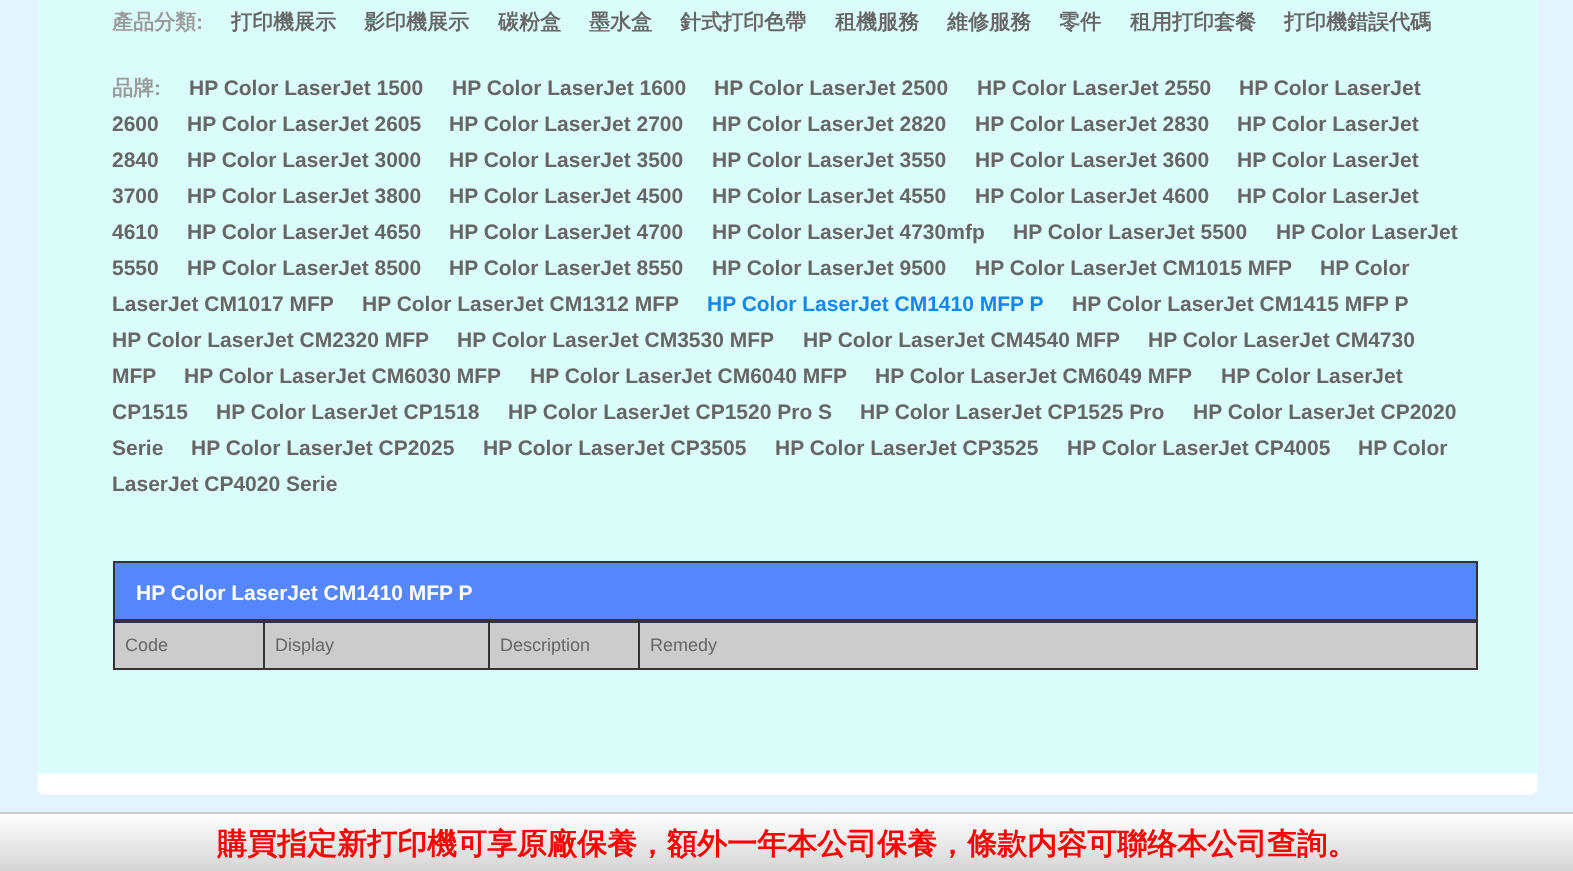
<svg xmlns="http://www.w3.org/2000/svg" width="1573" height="871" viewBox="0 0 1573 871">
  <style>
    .t1 { font: bold 21px WenQuanYi Zen Hei; fill: #999; }
    .t2 { font: bold 21px Liberation Sans; fill: #999; }
    .t3 { font: bold 21px WenQuanYi Zen Hei; fill: #666; }
    .t4 { font: bold 21px Liberation Sans; fill: #666; }
    .t5 { font: bold 21px Liberation Sans; fill: #1387ed; }
    .t6 { font: bold 21px Liberation Sans; fill: #fff; }
    .t7 { font: 18px Liberation Sans; fill: #666; }
    .t8 { font: bold 30px WenQuanYi Zen Hei; fill: #f00; }
  </style>
  <defs>
    <linearGradient id="g1" gradientUnits="userSpaceOnUse" x1="787" y1="813" x2="787" y2="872"><stop offset="0" stop-color="#fff"/><stop offset="1" stop-color="#d5d4d4"/></linearGradient>
  </defs>
  <rect width="100%" height="100%" fill="#e3f3ff"/>
  <rect x="38" y="0" width="1500" height="774" fill="#dbfdfa"/>
  <text x="112" y="29" class="t1">產品分類</text>
  <text x="196" y="29" class="t2">:</text>
  <text x="231" y="29" class="t3">打印機展示</text>
  <text x="364" y="29" class="t3">影印機展示</text>
  <text x="498" y="29" class="t3">碳粉盒</text>
  <text x="589" y="29" class="t3">墨水盒</text>
  <text x="680" y="29" class="t3">針式打印色帶</text>
  <text x="835" y="29" class="t3">租機服務</text>
  <text x="947" y="29" class="t3">維修服務</text>
  <text x="1059" y="29" class="t3">零件</text>
  <text x="1130" y="29" class="t3">租用打印套餐</text>
  <text x="1284" y="29" class="t3">打印機錯誤代碼</text>
  <text x="112" y="95" class="t1">品牌</text>
  <text x="154" y="95" class="t2">:</text>
  <text x="189" y="95" class="t4">HP Color LaserJet 1500</text>
  <text x="452" y="95" class="t4">HP Color LaserJet 1600</text>
  <text x="714" y="95" class="t4">HP Color LaserJet 2500</text>
  <text x="977" y="95" class="t4">HP Color LaserJet 2550</text>
  <text x="1239" y="95" class="t4">HP Color LaserJet</text>
  <text x="112" y="131" class="t4">2600</text>
  <text x="187" y="131" class="t4">HP Color LaserJet 2605</text>
  <text x="449" y="131" class="t4">HP Color LaserJet 2700</text>
  <text x="712" y="131" class="t4">HP Color LaserJet 2820</text>
  <text x="975" y="131" class="t4">HP Color LaserJet 2830</text>
  <text x="1237" y="131" class="t4">HP Color LaserJet</text>
  <text x="112" y="167" class="t4">2840</text>
  <text x="187" y="167" class="t4">HP Color LaserJet 3000</text>
  <text x="449" y="167" class="t4">HP Color LaserJet 3500</text>
  <text x="712" y="167" class="t4">HP Color LaserJet 3550</text>
  <text x="975" y="167" class="t4">HP Color LaserJet 3600</text>
  <text x="1237" y="167" class="t4">HP Color LaserJet</text>
  <text x="112" y="203" class="t4">3700</text>
  <text x="187" y="203" class="t4">HP Color LaserJet 3800</text>
  <text x="449" y="203" class="t4">HP Color LaserJet 4500</text>
  <text x="712" y="203" class="t4">HP Color LaserJet 4550</text>
  <text x="975" y="203" class="t4">HP Color LaserJet 4600</text>
  <text x="1237" y="203" class="t4">HP Color LaserJet</text>
  <text x="112" y="239" class="t4">4610</text>
  <text x="187" y="239" class="t4">HP Color LaserJet 4650</text>
  <text x="449" y="239" class="t4">HP Color LaserJet 4700</text>
  <text x="712" y="239" class="t4">HP Color LaserJet 4730mfp</text>
  <text x="1013" y="239" class="t4">HP Color LaserJet 5500</text>
  <text x="1276" y="239" class="t4">HP Color LaserJet</text>
  <text x="112" y="275" class="t4">5550</text>
  <text x="187" y="275" class="t4">HP Color LaserJet 8500</text>
  <text x="449" y="275" class="t4">HP Color LaserJet 8550</text>
  <text x="712" y="275" class="t4">HP Color LaserJet 9500</text>
  <text x="975" y="275" class="t4">HP Color LaserJet CM1015 MFP</text>
  <text x="1320" y="275" class="t4">HP Color</text>
  <text x="112" y="311" class="t4">LaserJet CM1017 MFP</text>
  <text x="362" y="311" class="t4">HP Color LaserJet CM1312 MFP</text>
  <text x="707" y="311" class="t5">HP Color LaserJet CM1410 MFP P</text>
  <text x="1072" y="311" class="t4">HP Color LaserJet CM1415 MFP P</text>
  <text x="112" y="347" class="t4">HP Color LaserJet CM2320 MFP</text>
  <text x="457" y="347" class="t4">HP Color LaserJet CM3530 MFP</text>
  <text x="803" y="347" class="t4">HP Color LaserJet CM4540 MFP</text>
  <text x="1148" y="347" class="t4">HP Color LaserJet CM4730</text>
  <text x="112" y="383" class="t4">MFP</text>
  <text x="184" y="383" class="t4">HP Color LaserJet CM6030 MFP</text>
  <text x="530" y="383" class="t4">HP Color LaserJet CM6040 MFP</text>
  <text x="875" y="383" class="t4">HP Color LaserJet CM6049 MFP</text>
  <text x="1221" y="383" class="t4">HP Color LaserJet</text>
  <text x="112" y="419" class="t4">CP1515</text>
  <text x="216" y="419" class="t4">HP Color LaserJet CP1518</text>
  <text x="508" y="419" class="t4">HP Color LaserJet CP1520 Pro S</text>
  <text x="860" y="419" class="t4">HP Color LaserJet CP1525 Pro</text>
  <text x="1193" y="419" class="t4">HP Color LaserJet CP2020</text>
  <text x="112" y="455" class="t4">Serie</text>
  <text x="191" y="455" class="t4">HP Color LaserJet CP2025</text>
  <text x="483" y="455" class="t4">HP Color LaserJet CP3505</text>
  <text x="775" y="455" class="t4">HP Color LaserJet CP3525</text>
  <text x="1067" y="455" class="t4">HP Color LaserJet CP4005</text>
  <text x="1358" y="455" class="t4">HP Color</text>
  <text x="112" y="491" class="t4">LaserJet CP4020 Serie</text>
  <rect x="114" y="562" width="1363" height="58" fill="#5586fb" stroke="#333" stroke-width="2"/>
  <text x="136" y="600" class="t6">HP Color LaserJet CM1410 MFP P</text>
  <rect x="115" y="623" width="1361" height="45" fill="#ccc"/>
  <rect x="113" y="621" width="1365" height="2" fill="#333"/>
  <rect x="1476" y="621" width="2" height="48" fill="#333"/>
  <rect x="113" y="668" width="1365" height="2" fill="#333"/>
  <rect x="113" y="621" width="2" height="48" fill="#333"/>
  <text x="125" y="651" class="t7">Code</text>
  <rect x="263" y="621" width="2" height="48" fill="#333"/>
  <text x="275" y="651" class="t7">Display</text>
  <rect x="488" y="621" width="2" height="48" fill="#333"/>
  <text x="500" y="651" class="t7">Description</text>
  <rect x="638" y="621" width="2" height="48" fill="#333"/>
  <text x="650" y="651" class="t7">Remedy</text>
  <image x="37" y="773" width="1501" height="22" href="images/1.png"/>
  <rect x="0" y="814" width="1573" height="57" fill="url(#g1)"/>
  <rect x="0" y="812" width="1573" height="2" fill="#ccc"/>
  <text x="217" y="854" class="t8">購買指定新打印機可享原廠保養，額外一年本公司保養，條款内容可聯络本公司查詢。</text>
</svg>
